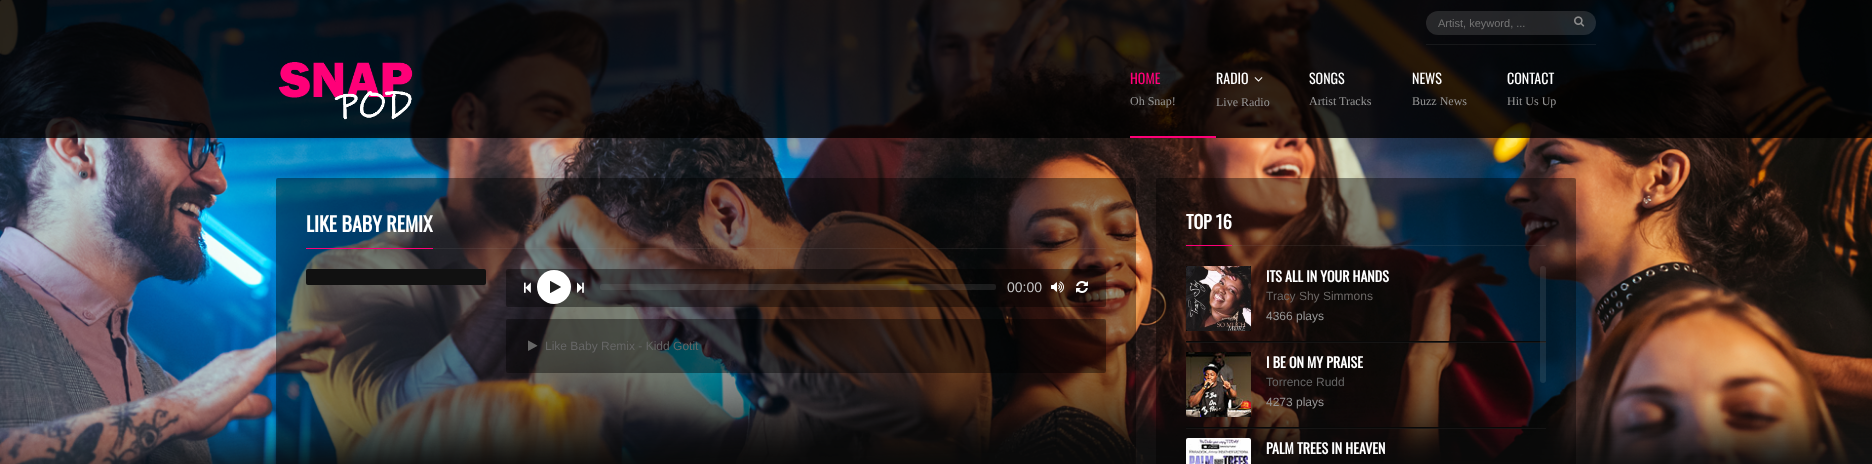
<svg xmlns="http://www.w3.org/2000/svg" width="1872" height="464" viewBox="0 0 1872 464">
  <style>
    .t1 { font: 11px Liberation Sans; fill: #757575; }
    .t2 { font: 14px Oswald; fill: #ff0078; }
    .t3 { font: 12px Liberation Serif; fill: #979797; }
    .t4 { font: 14px Oswald; fill: #fff; }
    .t5 { font: bold 20px Oswald; fill: #fff; }
    .t6 { font: 14px Liberation Sans; fill: #c2c2c2; }
    .t7 { font: 12px Liberation Sans; fill: #666; }
    .t8 { font: bold 18px Oswald; fill: #fff; }
    .t9 { font: bold 14px Oswald; fill: #fff; }
    .t10 { font: 12px Liberation Sans; fill: #6c6866; }
    .t11 { font: 12px Liberation Sans; fill: #979797; }
  </style>
  <rect width="100%" height="100%" fill="#111"/>
  <image x="0" y="0" width="1872" height="464" href="images/1.png"/>
  <rect x="0" y="0" width="1872" height="138" fill="#000000cc"/>
  <rect x="1426" y="44" width="170" height="1" fill="#a7a7a71a"/>
  <rect x="1426" y="11" width="170" height="24" rx="12" fill="#a7a7a733"/>
  <text x="1438" y="27" class="t1">Artist, keyword, ...</text>
  <image x="1574" y="16" width="11" height="11" href="images/2.png"/>
  <image x="278" y="62" width="135" height="58" href="images/3.png"/>
  <text x="1130" y="84" class="t2">HOME</text>
  <text x="1130" y="105" class="t3">Oh Snap!</text>
  <text x="1216" y="84" class="t4">RADIO</text>
  <image x="1254" y="77" width="9" height="5" href="images/4.png"/>
  <text x="1216" y="106" class="t3">Live Radio</text>
  <text x="1309" y="84" class="t4">SONGS</text>
  <text x="1309" y="105" class="t3">Artist Tracks</text>
  <text x="1412" y="84" class="t4">NEWS</text>
  <text x="1412" y="105" class="t3">Buzz News</text>
  <text x="1507" y="84" class="t4">CONTACT</text>
  <text x="1507" y="105" class="t3">Hit Us Up</text>
  <rect x="1130" y="136" width="86" height="2" fill="#ff0078"/>
  <rect x="276" y="178" width="860" height="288" rx="2" fill="#00000066"/>
  <rect x="306" y="248" width="127" height="1" fill="#ff0078"/>
  <text x="306" y="232" class="t5">LIKE BABY REMIX</text>
  <rect x="433" y="248" width="673" height="1" fill="#a7a7a71a"/>
  <rect x="306" y="269" width="180" height="16" rx="2" fill="#111"/>
  <rect x="506" y="269" width="600" height="38" rx="2" fill="#00000066"/>
  <image x="524" y="282" width="7" height="11" href="images/5.png"/>
  <circle cx="554" cy="287" r="17" fill="#fff"/>
  <image x="550" y="281" width="11" height="12" href="images/6.png"/>
  <image x="577" y="282" width="7" height="11" href="images/7.png"/>
  <rect x="600" y="284" width="396" height="6" rx="2" fill="#a7a7a724"/>
  <text x="1007" y="292" class="t6">00:00</text>
  <image x="1051" y="281" width="13" height="12" href="images/8.png"/>
  <image x="1076" y="281" width="12" height="12" href="images/9.png"/>
  <rect x="506" y="319" width="600" height="54" rx="2" fill="#00000066"/>
  <image x="528" y="340" width="10" height="11" href="images/10.png"/>
  <text x="545" y="350" class="t7">Like Baby Remix - Kidd Gotit</text>
  <rect x="1156" y="178" width="420" height="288" rx="2" fill="#00000066"/>
  <rect x="1186" y="245" width="46" height="1" fill="#ff0078"/>
  <text x="1186" y="229" class="t8">TOP 16</text>
  <rect x="1232" y="245" width="314" height="1" fill="#a7a7a71a"/>
  <rect x="1186" y="342" width="360" height="1" fill="#181818cc"/>
  <rect x="1186" y="341" width="360" height="1" fill="#080808"/>
  <rect x="1186" y="266" width="65" height="65" fill="#000"/>
  <image x="1186" y="266" width="65" height="65" href="images/11.png"/>
  <text x="1266" y="282" class="t9">ITS ALL IN YOUR HANDS</text>
  <text x="1266" y="300" class="t10">Tracy Shy Simmons</text>
  <text x="1266" y="320" class="t11">4366 plays</text>
  <rect x="1186" y="428" width="360" height="1" fill="#181818cc"/>
  <rect x="1186" y="427" width="336" height="1" fill="#080808"/>
  <rect x="1186" y="352" width="65" height="65" fill="#000"/>
  <image x="1186" y="352" width="65" height="65" href="images/12.png"/>
  <text x="1266" y="368" class="t9">I BE ON MY PRAISE</text>
  <text x="1266" y="386" class="t7">Torrence Rudd</text>
  <text x="1266" y="406" class="t11">4273 plays</text>
  <rect x="1186" y="438" width="65" height="2" fill="#000"/>
  <image x="1186" y="438" width="65" height="26" href="images/13.png"/>
  <text x="1266" y="454" class="t9">PALM TREES IN HEAVEN</text>
  <rect x="1540" y="266" width="6" height="117" rx="3" fill="#dddddd1a"/>
</svg>
